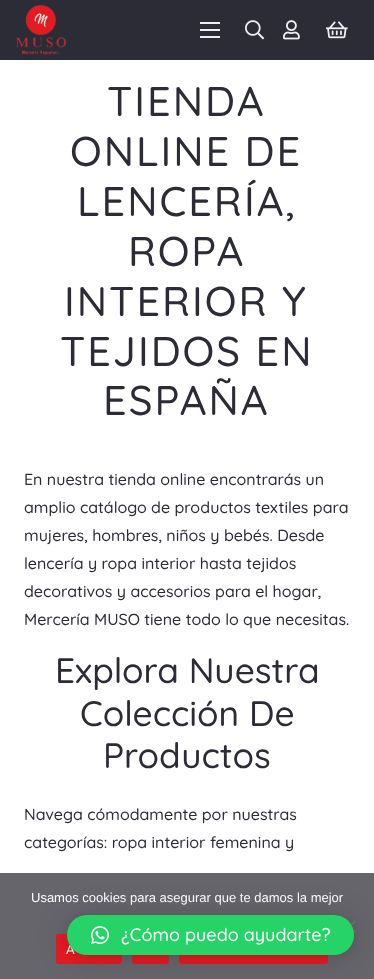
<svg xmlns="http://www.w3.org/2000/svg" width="374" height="979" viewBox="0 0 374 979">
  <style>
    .t1 { font: 500 41.5px Quicksand; letter-spacing: 2px; fill: #2b2c36; }
    .t2 { font: 500 16px Quicksand; fill: #2b2c36; }
    .t3 { font: 500 35.25px Quicksand; fill: #2b2c36; }
    .t4 { font: 13px Liberation Sans; fill: #fff; }
    .t5 { font: 500 18px Quicksand; fill: #fff; }
  </style>
  <rect width="100%" height="100%" fill="#fff"/>
  <rect x="0" y="0" width="374" height="60" fill="#2b2c36"/>
  <image x="16" y="5" width="50" height="50" href="images/1.png"/>
  <rect x="200" y="29" width="20" height="2" fill="#edf0f2"/>
  <rect x="200" y="22" width="20" height="2" fill="#edf0f2"/>
  <rect x="200" y="36" width="20" height="2" fill="#edf0f2"/>
  <image x="245" y="20" width="20" height="20" href="images/2.png"/>
  <image x="283" y="20" width="17" height="20" href="images/3.png"/>
  <image x="326" y="21" width="22" height="18" href="images/4.png"/>
  <text x="107" y="116" class="t1">TIENDA</text>
  <text x="70" y="166" class="t1">ONLINE DE</text>
  <text x="77" y="216" class="t1">LENCERÍA,</text>
  <text x="128" y="266" class="t1">ROPA</text>
  <text x="64" y="316" class="t1">INTERIOR Y</text>
  <text x="60" y="366" class="t1">TEJIDOS EN</text>
  <text x="103" y="415" class="t1">ESPAÑA</text>
  <text x="24" y="485" class="t2">En nuestra tienda online encontrarás un</text>
  <text x="24" y="513" class="t2">amplio catálogo de productos textiles para</text>
  <text x="24" y="541" class="t2">mujeres, hombres, niños y bebés. Desde</text>
  <text x="24" y="569" class="t2">lencería y ropa interior hasta tejidos</text>
  <text x="24" y="597" class="t2">decorativos y accesorios para el hogar,</text>
  <text x="24" y="625" class="t2">Mercería MUSO tiene todo lo que necesitas.</text>
  <text x="55" y="683" class="t3">Explora Nuestra</text>
  <text x="80" y="726" class="t3">Colección De</text>
  <text x="103" y="768" class="t3">Productos</text>
  <text x="24" y="820" class="t2">Navega cómodamente por nuestras</text>
  <text x="24" y="848" class="t2">categorías: ropa interior femenina y</text>
  <rect x="0" y="873" width="374" height="106" fill="#32323abf"/>
  <text x="31" y="902" class="t4">Usamos cookies para asegurar que te damos la mejor</text>
  <path d="M354.5 920.5L356 922L345.5 932.5L344 931Z" fill="#80808080"/>
  <path d="M344 922L345.5 920.5L356 931L354.5 932.5Z" fill="#737376"/>
  <rect x="56" y="934" width="66" height="30" rx="3" fill="#e41b23"/>
  <text x="66" y="954" class="t4">A</text>
  <rect x="132" y="934" width="37" height="30" rx="3" fill="#e41b23"/>
  <rect x="179" y="934" width="149" height="30" rx="3" fill="#e41b23"/>
  <rect x="67" y="917" width="287" height="40" rx="20" fill="#00000029" filter="blur(16px)"/>
  <rect x="67" y="916" width="287" height="40" rx="20" fill="#0000000f" filter="blur(3px)"/>
  <rect x="67" y="915" width="287" height="40" rx="20" fill="#25d366"/>
  <image x="91" y="926" width="18" height="19" href="images/5.png"/>
  <text x="121" y="941" class="t5">¿Cómo puedo ayudarte?</text>
</svg>
